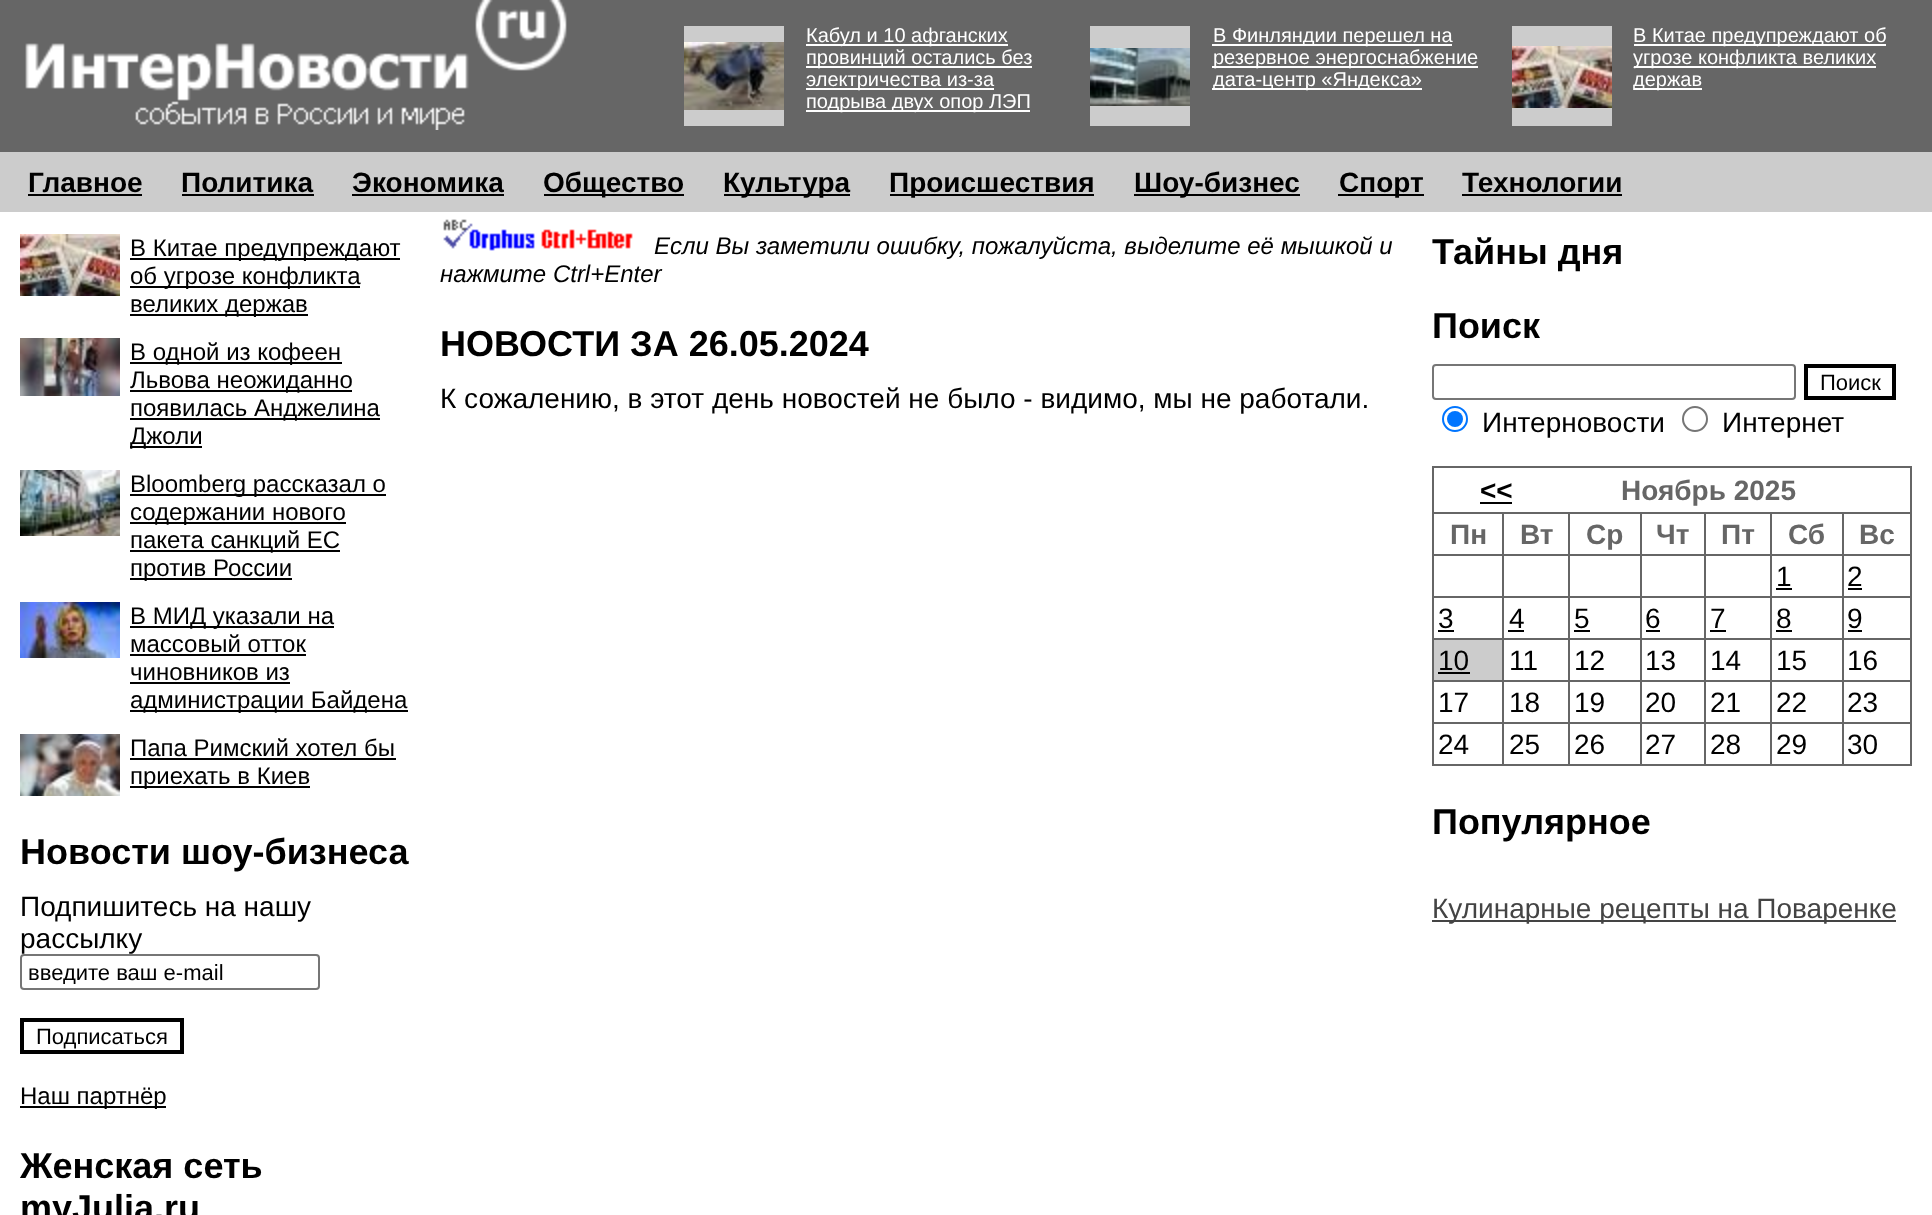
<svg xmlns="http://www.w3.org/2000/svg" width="1932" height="1215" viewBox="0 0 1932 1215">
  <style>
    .t1 { font: 20px Liberation Sans; fill: #fff; }
    .t2 { font: bold 28px Liberation Sans; fill: #000; }
    .t3 { font: 24px Liberation Sans; fill: #000; }
    .t4 { font: bold 36px Liberation Sans; fill: #000; }
    .t5 { font: 28px Liberation Sans; fill: #000; }
    .t6 { font: 22px Liberation Sans; fill: #000; }
    .t7 { font: italic 24px Liberation Sans; fill: #000; }
    .t8 { font: bold 28px Liberation Sans; fill: #666; }
    .t9 { font: 28px Liberation Sans; fill: #444; }
  </style>
  <defs>
    <clipPath id="clip1"><rect x="28" y="960" width="284" height="24"/></clipPath>
  </defs>
  <rect width="100%" height="100%" fill="#fff"/>
  <rect x="0" y="0" width="1932" height="152" fill="#666"/>
  <image x="25" y="0" width="542" height="130" href="images/1.png"/>
  <rect x="684" y="26" width="100" height="100" fill="#ccc"/>
  <image x="684" y="42" width="100" height="68" href="images/2.png"/>
  <rect x="806" y="44" width="202" height="2" fill="#fff"/>
  <text x="806" y="42" class="t1">Кабул и 10 афганских</text>
  <rect x="806" y="66" width="226" height="2" fill="#fff"/>
  <text x="806" y="64" class="t1">провинций остались без</text>
  <rect x="806" y="88" width="188" height="2" fill="#fff"/>
  <text x="806" y="86" class="t1">электричества из-за</text>
  <rect x="806" y="110" width="224" height="2" fill="#fff"/>
  <text x="806" y="108" class="t1">подрыва двух опор ЛЭП</text>
  <rect x="1090" y="26" width="100" height="100" fill="#ccc"/>
  <image x="1090" y="48" width="100" height="58" href="images/3.png"/>
  <rect x="1212" y="44" width="240" height="2" fill="#fff"/>
  <text x="1213" y="42" class="t1">В Финляндии перешел на</text>
  <rect x="1212" y="66" width="266" height="2" fill="#fff"/>
  <text x="1213" y="64" class="t1">резервное энергоснабжение</text>
  <rect x="1212" y="88" width="210" height="2" fill="#fff"/>
  <text x="1213" y="86" class="t1">дата-центр «Яндекса»</text>
  <rect x="1512" y="26" width="100" height="100" fill="#ccc"/>
  <image x="1512" y="46" width="100" height="62" href="images/4.png"/>
  <rect x="1634" y="44" width="252" height="2" fill="#fff"/>
  <text x="1633" y="42" class="t1">В Китае предупреждают об</text>
  <rect x="1634" y="66" width="242" height="2" fill="#fff"/>
  <text x="1633" y="64" class="t1">угрозе конфликта великих</text>
  <rect x="1634" y="88" width="68" height="2" fill="#fff"/>
  <text x="1633" y="86" class="t1">держав</text>
  <rect x="0" y="152" width="1932" height="60" fill="#ccc"/>
  <text x="28" y="192" class="t2">Главное</text>
  <rect x="28" y="194" width="114" height="2" fill="#000"/>
  <text x="181" y="192" class="t2">Политика</text>
  <rect x="182" y="194" width="132" height="2" fill="#000"/>
  <text x="352" y="192" class="t2">Экономика</text>
  <rect x="352" y="194" width="152" height="2" fill="#000"/>
  <rect x="544" y="194" width="140" height="2" fill="#000"/>
  <text x="543" y="192" class="t2">Общество</text>
  <rect x="724" y="194" width="126" height="2" fill="#000"/>
  <text x="723" y="192" class="t2">Культура</text>
  <rect x="890" y="194" width="204" height="2" fill="#000"/>
  <text x="889" y="192" class="t2">Происшествия</text>
  <rect x="1134" y="194" width="166" height="2" fill="#000"/>
  <text x="1134" y="192" class="t2">Шоу-бизнес</text>
  <rect x="1338" y="194" width="86" height="2" fill="#000"/>
  <text x="1339" y="192" class="t2">Спорт</text>
  <text x="1462" y="192" class="t2">Технологии</text>
  <rect x="1462" y="194" width="160" height="2" fill="#000"/>
  <image x="20" y="234" width="100" height="62" href="images/4.png"/>
  <rect x="130" y="258" width="270" height="2" fill="#000"/>
  <text x="130" y="256" class="t3">В Китае предупреждают</text>
  <rect x="130" y="286" width="230" height="2" fill="#000"/>
  <text x="130" y="284" class="t3">об угрозе конфликта</text>
  <rect x="130" y="314" width="178" height="2" fill="#000"/>
  <text x="130" y="312" class="t3">великих держав</text>
  <image x="20" y="338" width="100" height="58" href="images/5.png"/>
  <rect x="130" y="362" width="212" height="2" fill="#000"/>
  <text x="130" y="360" class="t3">В одной из кофеен</text>
  <rect x="130" y="390" width="222" height="2" fill="#000"/>
  <text x="130" y="388" class="t3">Львова неожиданно</text>
  <rect x="130" y="418" width="250" height="2" fill="#000"/>
  <text x="130" y="416" class="t3">появилась Анджелина</text>
  <rect x="130" y="446" width="72" height="2" fill="#000"/>
  <text x="130" y="444" class="t3">Джоли</text>
  <image x="20" y="470" width="100" height="66" href="images/6.png"/>
  <rect x="130" y="494" width="256" height="2" fill="#000"/>
  <text x="130" y="492" class="t3">Bloomberg рассказал о</text>
  <rect x="130" y="522" width="216" height="2" fill="#000"/>
  <text x="130" y="520" class="t3">содержании нового</text>
  <rect x="130" y="550" width="210" height="2" fill="#000"/>
  <text x="130" y="548" class="t3">пакета санкций ЕС</text>
  <rect x="130" y="578" width="162" height="2" fill="#000"/>
  <text x="130" y="576" class="t3">против России</text>
  <image x="20" y="602" width="100" height="56" href="images/7.png"/>
  <rect x="130" y="626" width="204" height="2" fill="#000"/>
  <text x="130" y="624" class="t3">В МИД указали на</text>
  <text x="130" y="652" class="t3">массовый отток</text>
  <rect x="130" y="654" width="176" height="2" fill="#000"/>
  <text x="130" y="680" class="t3">чиновников из</text>
  <rect x="130" y="682" width="160" height="2" fill="#000"/>
  <rect x="130" y="710" width="278" height="2" fill="#000"/>
  <text x="130" y="708" class="t3">администрации Байдена</text>
  <image x="20" y="734" width="100" height="62" href="images/8.png"/>
  <text x="130" y="756" class="t3">Папа Римский хотел бы</text>
  <rect x="130" y="758" width="266" height="2" fill="#000"/>
  <rect x="130" y="786" width="180" height="2" fill="#000"/>
  <text x="130" y="784" class="t3">приехать в Киев</text>
  <text x="20" y="864" class="t4">Новости шоу-бизнеса</text>
  <text x="20" y="916" class="t5">Подпишитесь на нашу</text>
  <text x="20" y="948" class="t5">рассылку</text>
  <rect x="21" y="955" width="298" height="34" rx="3" fill="none" stroke="#767676" stroke-width="2"/>
  <g clip-path="url(#clip1)">
    <text x="28" y="980" class="t6">введите ваш e-mail</text>
  </g>
  <rect x="22" y="1020" width="160" height="32" fill="none" stroke="#000" stroke-width="4"/>
  <text x="36" y="1044" class="t6">Подписаться</text>
  <rect x="20" y="1106" width="146" height="2" fill="#000"/>
  <text x="20" y="1104" class="t3">Наш партнёр</text>
  <text x="20" y="1178" class="t4">Женская сеть</text>
  <text x="20" y="1220" class="t4">myJulia.ru</text>
  <image x="443" y="219" width="190" height="32" href="images/9.png"/>
  <text x="654" y="254" class="t7">Если Вы заметили ошибку, пожалуйста, выделите её мышкой и</text>
  <text x="440" y="282" class="t7">нажмите Ctrl+Enter</text>
  <text x="440" y="356" class="t4">НОВОСТИ ЗА 26.05.2024</text>
  <text x="440" y="408" class="t5">К сожалению, в этот день новостей не было - видимо, мы не работали.</text>
  <text x="1432" y="264" class="t4">Тайны дня</text>
  <text x="1432" y="338" class="t4">Поиск</text>
  <rect x="1433" y="365" width="362" height="34" rx="3" fill="none" stroke="#767676" stroke-width="2"/>
  <rect x="1806" y="366" width="88" height="32" fill="none" stroke="#000" stroke-width="4"/>
  <text x="1820" y="390" class="t6">Поиск</text>
  <circle cx="1455" cy="419" r="12" fill="none" stroke="#0075ff" stroke-width="2"/>
  <circle cx="1455" cy="419" r="8" fill="#0075ff"/>
  <text x="1482" y="432" class="t5">Интерновости</text>
  <circle cx="1695" cy="419" r="12" fill="none" stroke="#767676" stroke-width="2"/>
  <text x="1722" y="432" class="t5">Интернет</text>
  <rect x="1432" y="466" width="480" height="300" fill="#666"/>
  <rect x="1434" y="468" width="476" height="44" fill="#fff"/>
  <text x="1480" y="500" class="t2">&lt;&lt;</text>
  <rect x="1480" y="502" width="32" height="2" fill="#000"/>
  <text x="1621" y="500" class="t8">Ноябрь 2025</text>
  <rect x="1434" y="514" width="68" height="40" fill="#fff"/>
  <text x="1450" y="544" class="t8">Пн</text>
  <rect x="1504" y="514" width="64" height="40" fill="#fff"/>
  <text x="1520" y="544" class="t8">Вт</text>
  <rect x="1570" y="514" width="70" height="40" fill="#fff"/>
  <text x="1586" y="544" class="t8">Ср</text>
  <rect x="1642" y="514" width="62" height="40" fill="#fff"/>
  <text x="1656" y="544" class="t8">Чт</text>
  <rect x="1706" y="514" width="64" height="40" fill="#fff"/>
  <text x="1721" y="544" class="t8">Пт</text>
  <rect x="1772" y="514" width="70" height="40" fill="#fff"/>
  <text x="1788" y="544" class="t8">Сб</text>
  <rect x="1844" y="514" width="66" height="40" fill="#fff"/>
  <text x="1859" y="544" class="t8">Вс</text>
  <rect x="1434" y="556" width="68" height="40" fill="#fff"/>
  <rect x="1504" y="556" width="64" height="40" fill="#fff"/>
  <rect x="1570" y="556" width="70" height="40" fill="#fff"/>
  <rect x="1642" y="556" width="62" height="40" fill="#fff"/>
  <rect x="1706" y="556" width="64" height="40" fill="#fff"/>
  <rect x="1772" y="556" width="70" height="40" fill="#fff"/>
  <text x="1776" y="586" class="t5">1</text>
  <rect x="1776" y="588" width="16" height="2" fill="#000"/>
  <rect x="1844" y="556" width="66" height="40" fill="#fff"/>
  <text x="1847" y="586" class="t5">2</text>
  <rect x="1848" y="588" width="14" height="2" fill="#000"/>
  <rect x="1434" y="598" width="68" height="40" fill="#fff"/>
  <text x="1438" y="628" class="t5">3</text>
  <rect x="1438" y="630" width="16" height="2" fill="#000"/>
  <rect x="1504" y="598" width="64" height="40" fill="#fff"/>
  <text x="1509" y="628" class="t5">4</text>
  <rect x="1508" y="630" width="16" height="2" fill="#000"/>
  <rect x="1570" y="598" width="70" height="40" fill="#fff"/>
  <text x="1574" y="628" class="t5">5</text>
  <rect x="1574" y="630" width="16" height="2" fill="#000"/>
  <rect x="1642" y="598" width="62" height="40" fill="#fff"/>
  <text x="1645" y="628" class="t5">6</text>
  <rect x="1646" y="630" width="14" height="2" fill="#000"/>
  <rect x="1706" y="598" width="64" height="40" fill="#fff"/>
  <text x="1710" y="628" class="t5">7</text>
  <rect x="1710" y="630" width="16" height="2" fill="#000"/>
  <rect x="1772" y="598" width="70" height="40" fill="#fff"/>
  <text x="1776" y="628" class="t5">8</text>
  <rect x="1776" y="630" width="16" height="2" fill="#000"/>
  <rect x="1844" y="598" width="66" height="40" fill="#fff"/>
  <text x="1847" y="628" class="t5">9</text>
  <rect x="1848" y="630" width="14" height="2" fill="#000"/>
  <rect x="1434" y="640" width="68" height="40" fill="#ccc"/>
  <text x="1438" y="670" class="t5">10</text>
  <rect x="1438" y="672" width="32" height="2" fill="#000"/>
  <rect x="1504" y="640" width="64" height="40" fill="#fff"/>
  <text x="1509" y="670" class="t5">11</text>
  <rect x="1570" y="640" width="70" height="40" fill="#fff"/>
  <text x="1574" y="670" class="t5">12</text>
  <rect x="1642" y="640" width="62" height="40" fill="#fff"/>
  <text x="1645" y="670" class="t5">13</text>
  <rect x="1706" y="640" width="64" height="40" fill="#fff"/>
  <text x="1710" y="670" class="t5">14</text>
  <rect x="1772" y="640" width="70" height="40" fill="#fff"/>
  <text x="1776" y="670" class="t5">15</text>
  <rect x="1844" y="640" width="66" height="40" fill="#fff"/>
  <text x="1847" y="670" class="t5">16</text>
  <rect x="1434" y="682" width="68" height="40" fill="#fff"/>
  <text x="1438" y="712" class="t5">17</text>
  <rect x="1504" y="682" width="64" height="40" fill="#fff"/>
  <text x="1509" y="712" class="t5">18</text>
  <rect x="1570" y="682" width="70" height="40" fill="#fff"/>
  <text x="1574" y="712" class="t5">19</text>
  <rect x="1642" y="682" width="62" height="40" fill="#fff"/>
  <text x="1645" y="712" class="t5">20</text>
  <rect x="1706" y="682" width="64" height="40" fill="#fff"/>
  <text x="1710" y="712" class="t5">21</text>
  <rect x="1772" y="682" width="70" height="40" fill="#fff"/>
  <text x="1776" y="712" class="t5">22</text>
  <rect x="1844" y="682" width="66" height="40" fill="#fff"/>
  <text x="1847" y="712" class="t5">23</text>
  <rect x="1434" y="724" width="68" height="40" fill="#fff"/>
  <text x="1438" y="754" class="t5">24</text>
  <rect x="1504" y="724" width="64" height="40" fill="#fff"/>
  <text x="1509" y="754" class="t5">25</text>
  <rect x="1570" y="724" width="70" height="40" fill="#fff"/>
  <text x="1574" y="754" class="t5">26</text>
  <rect x="1642" y="724" width="62" height="40" fill="#fff"/>
  <text x="1645" y="754" class="t5">27</text>
  <rect x="1706" y="724" width="64" height="40" fill="#fff"/>
  <text x="1710" y="754" class="t5">28</text>
  <rect x="1772" y="724" width="70" height="40" fill="#fff"/>
  <text x="1776" y="754" class="t5">29</text>
  <rect x="1844" y="724" width="66" height="40" fill="#fff"/>
  <text x="1847" y="754" class="t5">30</text>
  <text x="1432" y="834" class="t4">Популярное</text>
  <rect x="1432" y="920" width="464" height="2" fill="#444"/>
  <text x="1432" y="918" class="t9">Кулинарные рецепты на Поваренке</text>
</svg>
